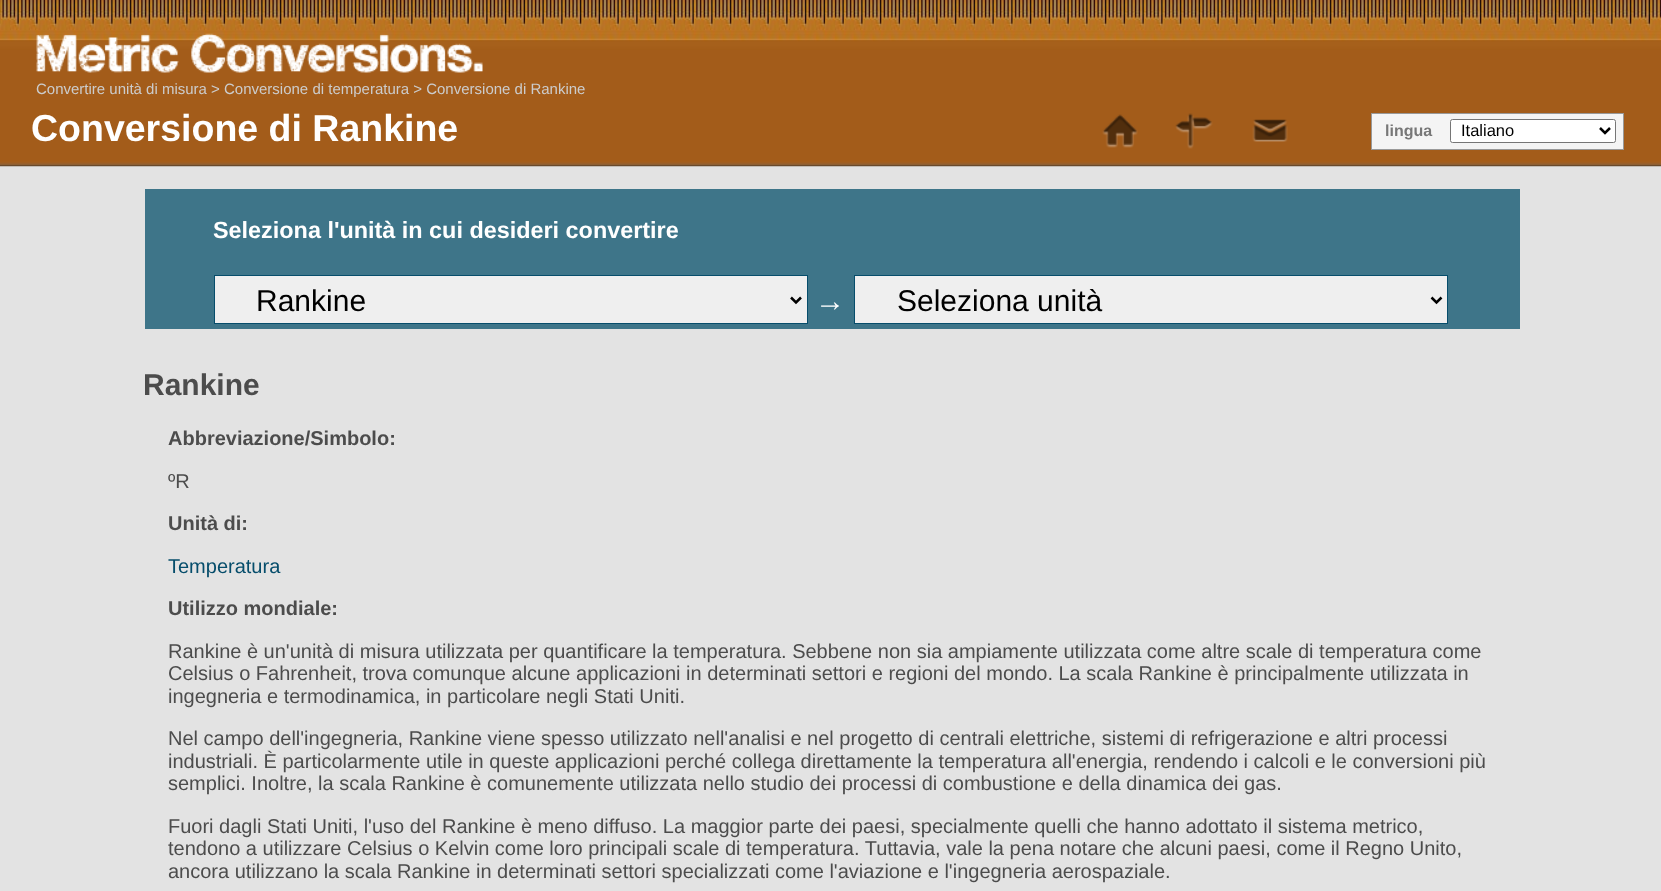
<svg xmlns="http://www.w3.org/2000/svg" width="1661" height="891" viewBox="0 0 1661 891">
  <style>
    .t1 { font: 15px Liberation Sans; fill: #ccc; }
    .t2 { font: bold 37.5px Liberation Sans; fill: #fff; }
    .t3 { font: bold 16px Liberation Sans; fill: #777; }
    .t4 { font: 16.5px Liberation Sans; fill: #000; }
    .t5 { font: bold 23.4px Liberation Sans; fill: #fff; }
    .t6 { font: 30px Liberation Sans; fill: #000; }
    .t7 { font: bold 30px Liberation Sans; fill: #fff; }
    .t8 { font: bold 30px Liberation Sans; fill: #4c4c4c; }
    .t9 { font: bold 20px Liberation Sans; fill: #4c4c4c; }
    .t10 { font: 20px Liberation Sans; fill: #4c4c4c; }
    .t11 { font: 20px Liberation Sans; fill: #064d6b; }
  </style>
  <rect width="100%" height="100%" fill="#e3e3e3"/>
  <image x="0" y="0" width="1661" height="167" href="images/1.png"/>
  <image x="36" y="33" width="447" height="40" href="images/2.png"/>
  <text x="36" y="94" class="t1">Convertire unità di misura &gt; Conversione di temperatura &gt; Conversione di Rankine</text>
  <text x="31" y="141" class="t2">Conversione di Rankine</text>
  <image x="1102" y="114" width="36" height="34" href="images/3.png"/>
  <image x="1175" y="113" width="38" height="36" href="images/4.png"/>
  <image x="1252" y="119" width="36" height="23" href="images/5.png"/>
  <rect x="1371.5" y="113.5" width="252" height="36" fill="#f4f4f4" stroke="#999"/>
  <text x="1385" y="136" class="t3">lingua</text>
  <rect x="1450.5" y="119.5" width="165" height="23" rx="2" fill="#fff" stroke="#767676"/>
  <path d="M1600 128L1605 133L1610 128" fill="none" stroke="#000" stroke-width="2.5"/>
  <text x="1461" y="136" class="t4">Italiano</text>
  <rect x="145" y="189" width="1375" height="140" fill="#3e7589"/>
  <text x="213" y="238" class="t5">Seleziona l'unità in cui desideri convertire</text>
  <rect x="214.5" y="275.5" width="593" height="48" fill="#efefef" stroke="#064d6b"/>
  <path d="M791 297.5L796 302.5L801 297.5" fill="none" stroke="#000" stroke-width="2.5"/>
  <text x="256" y="311" class="t6">Rankine</text>
  <text x="815" y="311" class="t7">→</text>
  <rect x="854.5" y="275.5" width="593" height="48" fill="#efefef" stroke="#064d6b"/>
  <path d="M1431.5 297.5L1436.5 302.5L1441.5 297.5" fill="none" stroke="#000" stroke-width="2.5"/>
  <text x="897" y="311" class="t6">Seleziona unità</text>
  <text x="143" y="395" class="t8">Rankine</text>
  <text x="168" y="445" class="t9">Abbreviazione/Simbolo:</text>
  <text x="168" y="488" class="t10">ºR</text>
  <text x="168" y="530" class="t9">Unità di:</text>
  <text x="168" y="573" class="t11">Temperatura</text>
  <text x="168" y="615" class="t9">Utilizzo mondiale:</text>
  <text x="168" y="658" class="t10">Rankine è un'unità di misura utilizzata per quantificare la temperatura. Sebbene non sia ampiamente utilizzata come altre scale di temperatura come</text>
  <text x="168" y="680" class="t10">Celsius o Fahrenheit, trova comunque alcune applicazioni in determinati settori e regioni del mondo. La scala Rankine è principalmente utilizzata in</text>
  <text x="168" y="703" class="t10">ingegneria e termodinamica, in particolare negli Stati Uniti.</text>
  <text x="168" y="745" class="t10">Nel campo dell'ingegneria, Rankine viene spesso utilizzato nell'analisi e nel progetto di centrali elettriche, sistemi di refrigerazione e altri processi</text>
  <text x="168" y="768" class="t10">industriali. È particolarmente utile in queste applicazioni perché collega direttamente la temperatura all'energia, rendendo i calcoli e le conversioni più</text>
  <text x="168" y="790" class="t10">semplici. Inoltre, la scala Rankine è comunemente utilizzata nello studio dei processi di combustione e della dinamica dei gas.</text>
  <text x="168" y="833" class="t10">Fuori dagli Stati Uniti, l'uso del Rankine è meno diffuso. La maggior parte dei paesi, specialmente quelli che hanno adottato il sistema metrico,</text>
  <text x="168" y="855" class="t10">tendono a utilizzare Celsius o Kelvin come loro principali scale di temperatura. Tuttavia, vale la pena notare che alcuni paesi, come il Regno Unito,</text>
  <text x="168" y="878" class="t10">ancora utilizzano la scala Rankine in determinati settori specializzati come l'aviazione e l'ingegneria aerospaziale.</text>
</svg>
